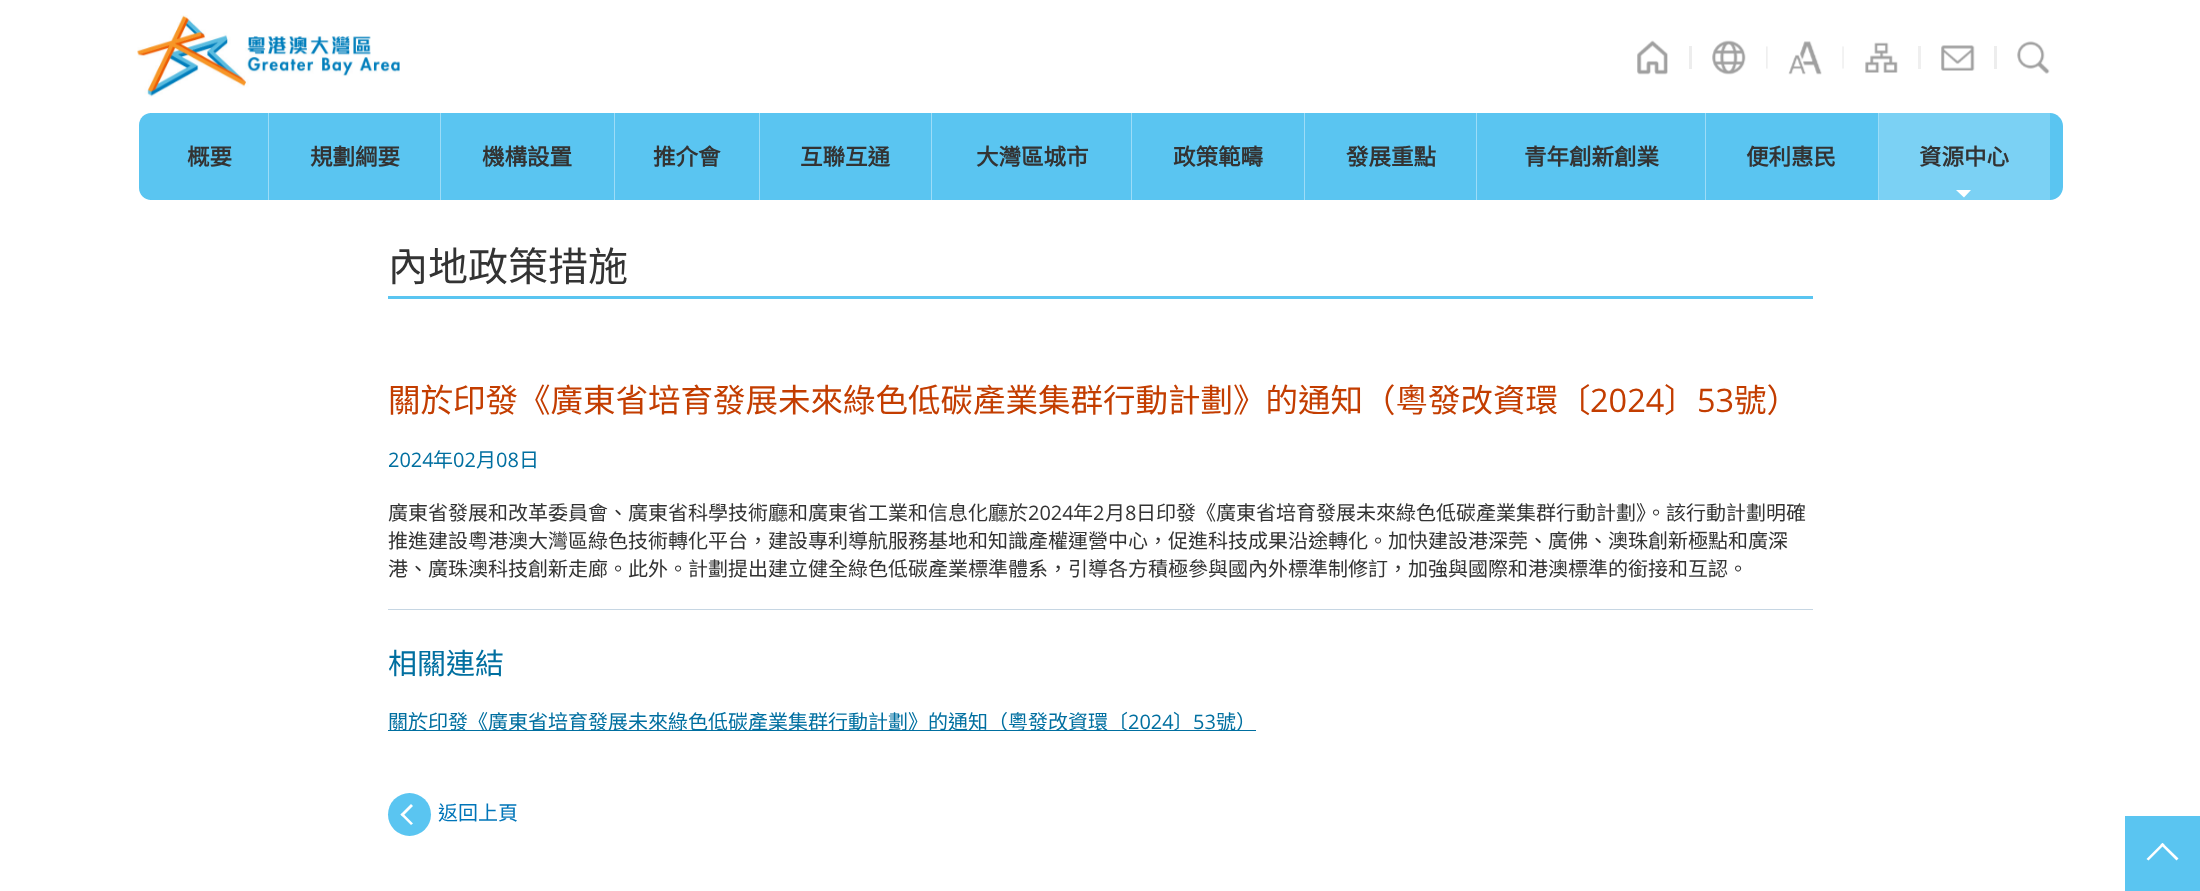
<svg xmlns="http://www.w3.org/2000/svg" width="2200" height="891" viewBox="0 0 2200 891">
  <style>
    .t1 { font: bold 22.5px Noto Sans CJK HK; fill: #333; }
    .t2 { font: 40px Noto Sans CJK HK; fill: #333; }
    .t3 { font: 32.5px Noto Sans CJK HK; fill: #c33d00; }
    .t4 { font: 32.5px Open Sans; fill: #c33d00; }
    .t5 { font: 20px Open Sans; fill: #006fa0; }
    .t6 { font: 20px Noto Sans CJK HK; fill: #006fa0; }
    .t7 { font: 20px Noto Sans CJK HK; fill: #333; }
    .t8 { font: 20px Open Sans; fill: #333; }
    .t9 { font: 29px Noto Sans CJK HK; fill: #006fa0; }
    .t10 { font: 20px Noto Sans CJK HK; fill: #0075b9; }
  </style>
  <rect width="100%" height="100%" fill="#fff"/>
  <image x="137" y="15" width="263" height="82" href="images/1.png"/>
  <image x="1637" y="40" width="31" height="35" href="images/2.png"/>
  <rect x="1689" y="46" width="3" height="23" fill="#ededed"/>
  <image x="1712" y="40" width="34" height="35" href="images/3.png"/>
  <image x="1766" y="46" width="2" height="23" href="images/4.png"/>
  <image x="1788" y="41" width="34" height="34" href="images/5.png"/>
  <image x="1842" y="46" width="2" height="23" href="images/6.png"/>
  <image x="1865" y="42" width="33" height="31" href="images/7.png"/>
  <rect x="1918" y="46" width="3" height="23" fill="#efefef"/>
  <image x="1941" y="45" width="34" height="26" href="images/8.png"/>
  <rect x="1994" y="46" width="3" height="23" fill="#ededed"/>
  <image x="2017" y="41" width="33" height="33" href="images/9.png"/>
  <rect x="150" y="113" width="118" height="87" fill="#5ac5f1"/>
  <path d="M151 113V200C144.5 200 139 194.5 139 188V125C139 118.5 144.5 113 151 113Z" fill="#5ac5f1"/>
  <text x="187" y="165" class="t1">概要</text>
  <rect x="269" y="113" width="171" height="87" fill="#5ac5f1"/>
  <rect x="268" y="113" width="1" height="87" fill="#9cdcf7"/>
  <text x="310" y="165" class="t1">規劃綱要</text>
  <rect x="441" y="113" width="173" height="87" fill="#5ac5f1"/>
  <rect x="440" y="113" width="1" height="87" fill="#9cdcf7"/>
  <text x="482" y="165" class="t1">機構設置</text>
  <rect x="615" y="113" width="144" height="87" fill="#5ac5f1"/>
  <rect x="614" y="113" width="1" height="87" fill="#9cdcf7"/>
  <text x="653" y="165" class="t1">推介會</text>
  <rect x="760" y="113" width="171" height="87" fill="#5ac5f1"/>
  <rect x="759" y="113" width="1" height="87" fill="#9cdcf7"/>
  <text x="800" y="165" class="t1">互聯互通</text>
  <rect x="932" y="113" width="199" height="87" fill="#5ac5f1"/>
  <rect x="931" y="113" width="1" height="87" fill="#9cdcf7"/>
  <text x="976" y="165" class="t1">大灣區城市</text>
  <rect x="1132" y="113" width="172" height="87" fill="#5ac5f1"/>
  <rect x="1131" y="113" width="1" height="87" fill="#9cdcf7"/>
  <text x="1173" y="165" class="t1">政策範疇</text>
  <rect x="1305" y="113" width="171" height="87" fill="#5ac5f1"/>
  <rect x="1304" y="113" width="1" height="87" fill="#9cdcf7"/>
  <text x="1346" y="165" class="t1">發展重點</text>
  <rect x="1477" y="113" width="228" height="87" fill="#5ac5f1"/>
  <rect x="1476" y="113" width="1" height="87" fill="#9cdcf7"/>
  <text x="1524" y="165" class="t1">青年創新創業</text>
  <rect x="1706" y="113" width="172" height="87" fill="#5ac5f1"/>
  <rect x="1705" y="113" width="1" height="87" fill="#9cdcf7"/>
  <text x="1746" y="165" class="t1">便利惠民</text>
  <rect x="1878" y="113" width="1" height="87" fill="#9cdcf7"/>
  <rect x="1879" y="113" width="171" height="87" fill="#7bd1f4"/>
  <text x="1919" y="165" class="t1">資源中心</text>
  <path d="M1956 190H1971L1964 197.5Z" fill="#fff"/>
  <path d="M2050 113C2057 113 2063 119 2063 126V187C2063 194 2057 200 2050 200Z" fill="#5ac5f1"/>
  <rect x="388" y="296" width="1425" height="3" fill="#5ac5f1"/>
  <text x="388" y="281" class="t2">內地政策措施</text>
  <text x="388" y="412" class="t3">關於印發《廣東省培育發展未來綠色低碳產業集群行動計劃》的通知（粵發改資環〔</text>
  <text x="1590" y="412" class="t4">2024</text>
  <text x="1664" y="412" class="t3">〕</text>
  <text x="1697" y="412" class="t4">53</text>
  <text x="1734" y="412" class="t3">號）</text>
  <text x="388" y="467" class="t5">2024</text>
  <text x="433" y="467" class="t6">年</text>
  <text x="453" y="467" class="t5">02</text>
  <text x="476" y="467" class="t6">月</text>
  <text x="496" y="467" class="t5">08</text>
  <text x="519" y="467" class="t6">日</text>
  <text x="388" y="520" class="t7">廣東省發展和改革委員會、廣東省科學技術廳和廣東省工業和信息化廳於</text>
  <text x="1028" y="520" class="t8">2024</text>
  <text x="1073" y="520" class="t7">年</text>
  <text x="1093" y="520" class="t8">2</text>
  <text x="1105" y="520" class="t7">月</text>
  <text x="1125" y="520" class="t8">8</text>
  <text x="1136" y="520" class="t7">日印發《廣東省培育發展未來綠色低碳產業集群行動計劃》。該行動計劃明確</text>
  <text x="388" y="548" class="t7">推進建設粵港澳大灣區綠色技術轉化平台，建設專利導航服務基地和知識產權運營中心，促進科技成果沿途轉化。加快建設港深莞、廣佛、澳珠創新極點和廣深</text>
  <text x="388" y="576" class="t7">港、廣珠澳科技創新走廊。此外。計劃提出建立健全綠色低碳產業標準體系，引導各方積極參與國內外標準制修訂，加強與國際和港澳標準的銜接和互認。</text>
  <rect x="388" y="609" width="1425" height="1" fill="#c6d6e3"/>
  <text x="388" y="674" class="t9">相關連結</text>
  <rect x="388" y="730" width="868" height="1" fill="#006fa0"/>
  <text x="388" y="729" class="t6">關於印發《廣東省培育發展未來綠色低碳產業集群行動計劃》的通知（粵發改資環〔</text>
  <text x="1128" y="729" class="t5">2024</text>
  <text x="1173" y="729" class="t6">〕</text>
  <text x="1193" y="729" class="t5">53</text>
  <text x="1216" y="729" class="t6">號）</text>
  <circle cx="409.5" cy="814.5" r="21.5" fill="#5ac5f1"/>
  <text x="438" y="820" class="t10">返回上頁</text>
  <path d="M400.5 814.5L411 804L413 806L402.5 816.5Z" fill="#fff"/>
  <path d="M400.5 814.5L402.5 813L413 823.5L411 825Z" fill="#fff"/>
  <rect x="2125" y="816" width="75" height="75" fill="#5ac5f1"/>
  <path d="M2146.5 859L2162.5 843L2164.5 844.5L2148.5 860.5Z" fill="#fff"/>
  <path d="M2160.5 844.5L2162.5 843L2178.5 858.5L2176.5 860.5Z" fill="#fff"/>
</svg>
